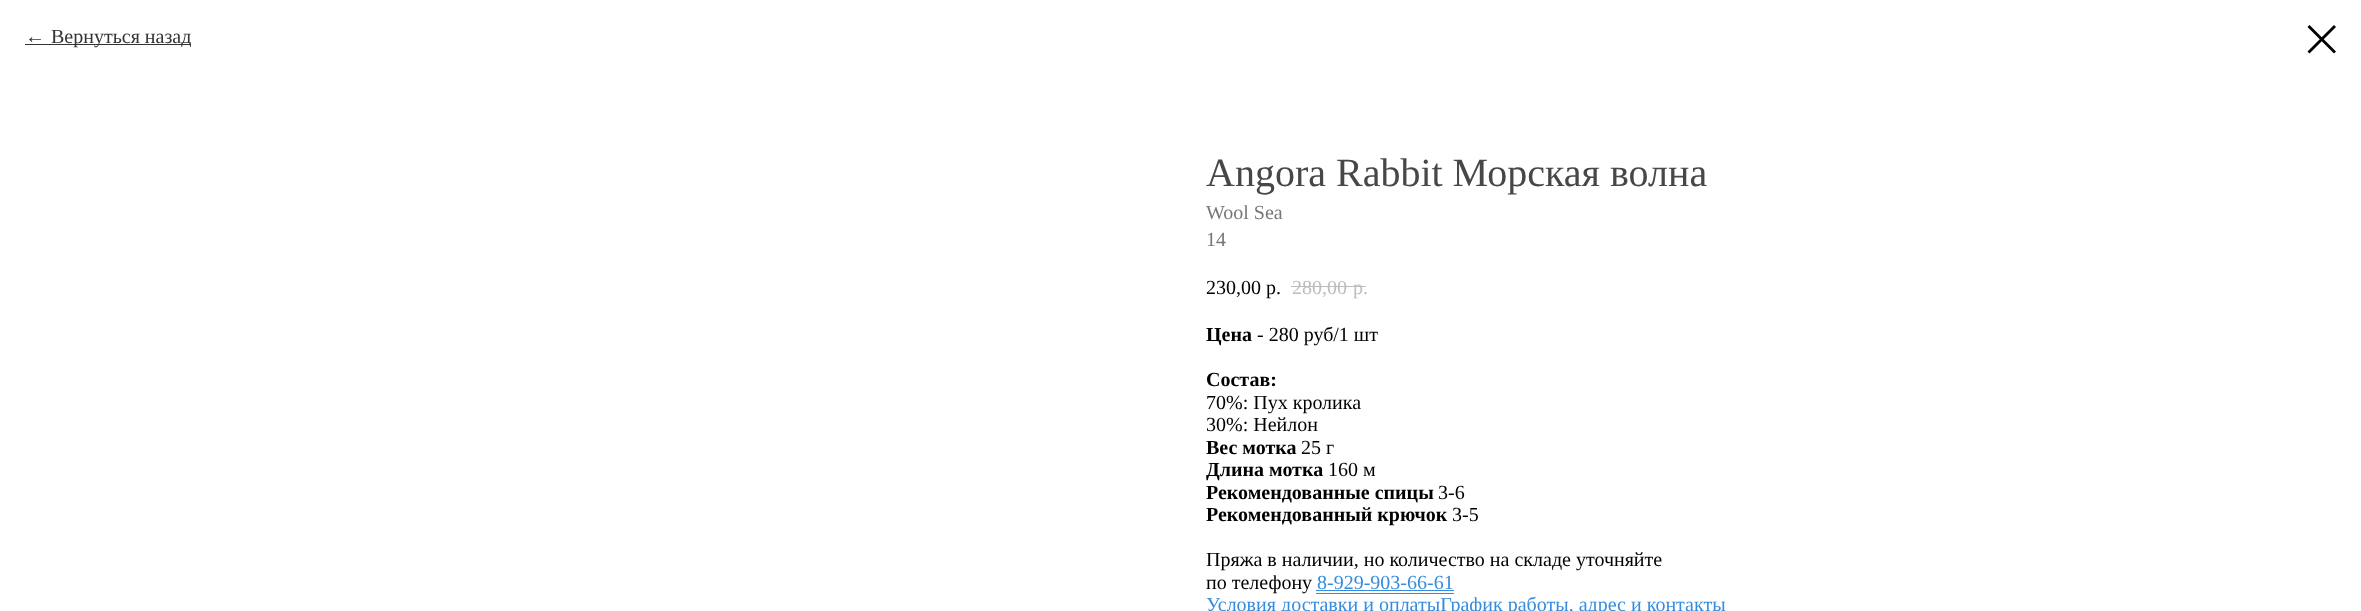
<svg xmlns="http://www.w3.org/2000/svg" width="2361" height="611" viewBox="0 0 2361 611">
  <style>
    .t1 { font: 20px Liberation Sans; fill: #333; }
    .t2 { font: 20px Liberation Serif; fill: #333; }
    .t3 { font: 40px Liberation Serif; fill: #474747; }
    .t4 { font: 20px Liberation Serif; fill: #777; }
    .t5 { font: 20px Liberation Serif; fill: #000; }
    .t6 { font: 20px Liberation Serif; fill: #bdbdbd; }
    .t7 { font: bold 20px Liberation Serif; fill: #000; }
    .t8 { font: 20px Liberation Serif; fill: #358cde; }
  </style>
  <rect width="100%" height="100%" fill="#fff"/>
  <rect x="25" y="44" width="166" height="1" fill="#333"/>
  <text x="25" y="43" class="t1">←</text>
  <text x="51" y="43" class="t2">Вернуться назад</text>
  <path d="M2307.5 27L2309.5 25L2336 51.5L2334 53.5Z" fill="#000" fill-rule="evenodd"/>
  <path d="M2334 25L2336 27L2309.5 53.5L2307.5 51.5Z" fill="#000" fill-rule="evenodd"/>
  <text x="1206" y="186" class="t3">Angora Rabbit Морская волна</text>
  <text x="1206" y="219" class="t4">Wool Sea</text>
  <text x="1206" y="246" class="t4">14</text>
  <text x="1206" y="294" class="t5">230,00</text>
  <text x="1266" y="294" class="t5">р.</text>
  <text x="1292" y="294" class="t6">280,00</text>
  <text x="1353" y="294" class="t6">р.</text>
  <rect x="1291" y="286" width="75" height="1" fill="#bdbdbd"/>
  <text x="1206" y="341" class="t7">Цена</text>
  <text x="1257" y="341" class="t5">- 280 руб/1 шт</text>
  <text x="1206" y="386" class="t7">Состав:</text>
  <text x="1206" y="409" class="t5">70%: Пух кролика</text>
  <text x="1206" y="431" class="t5">30%: Нейлон</text>
  <text x="1206" y="454" class="t7">Вес мотка</text>
  <text x="1301" y="454" class="t5">25 г</text>
  <text x="1206" y="476" class="t7">Длина мотка</text>
  <text x="1328" y="476" class="t5">160 м</text>
  <text x="1206" y="499" class="t7">Рекомендованные спицы</text>
  <text x="1438" y="499" class="t5">3-6</text>
  <text x="1206" y="521" class="t7">Рекомендованный крючок</text>
  <text x="1452" y="521" class="t5">3-5</text>
  <text x="1206" y="566" class="t5">Пряжа в наличии, но количество на складе уточняйте</text>
  <text x="1206" y="589" class="t5">по телефону</text>
  <text x="1317" y="589" class="t8">8-929-903-66-61</text>
  <rect x="1316" y="593" width="138" height="1" fill="#358cde"/>
  <rect x="1316" y="590" width="138" height="1" fill="#358cde"/>
  <text x="1206" y="611" class="t8">Условия доставки и оплатыГрафик работы, адрес и контакты</text>
</svg>
